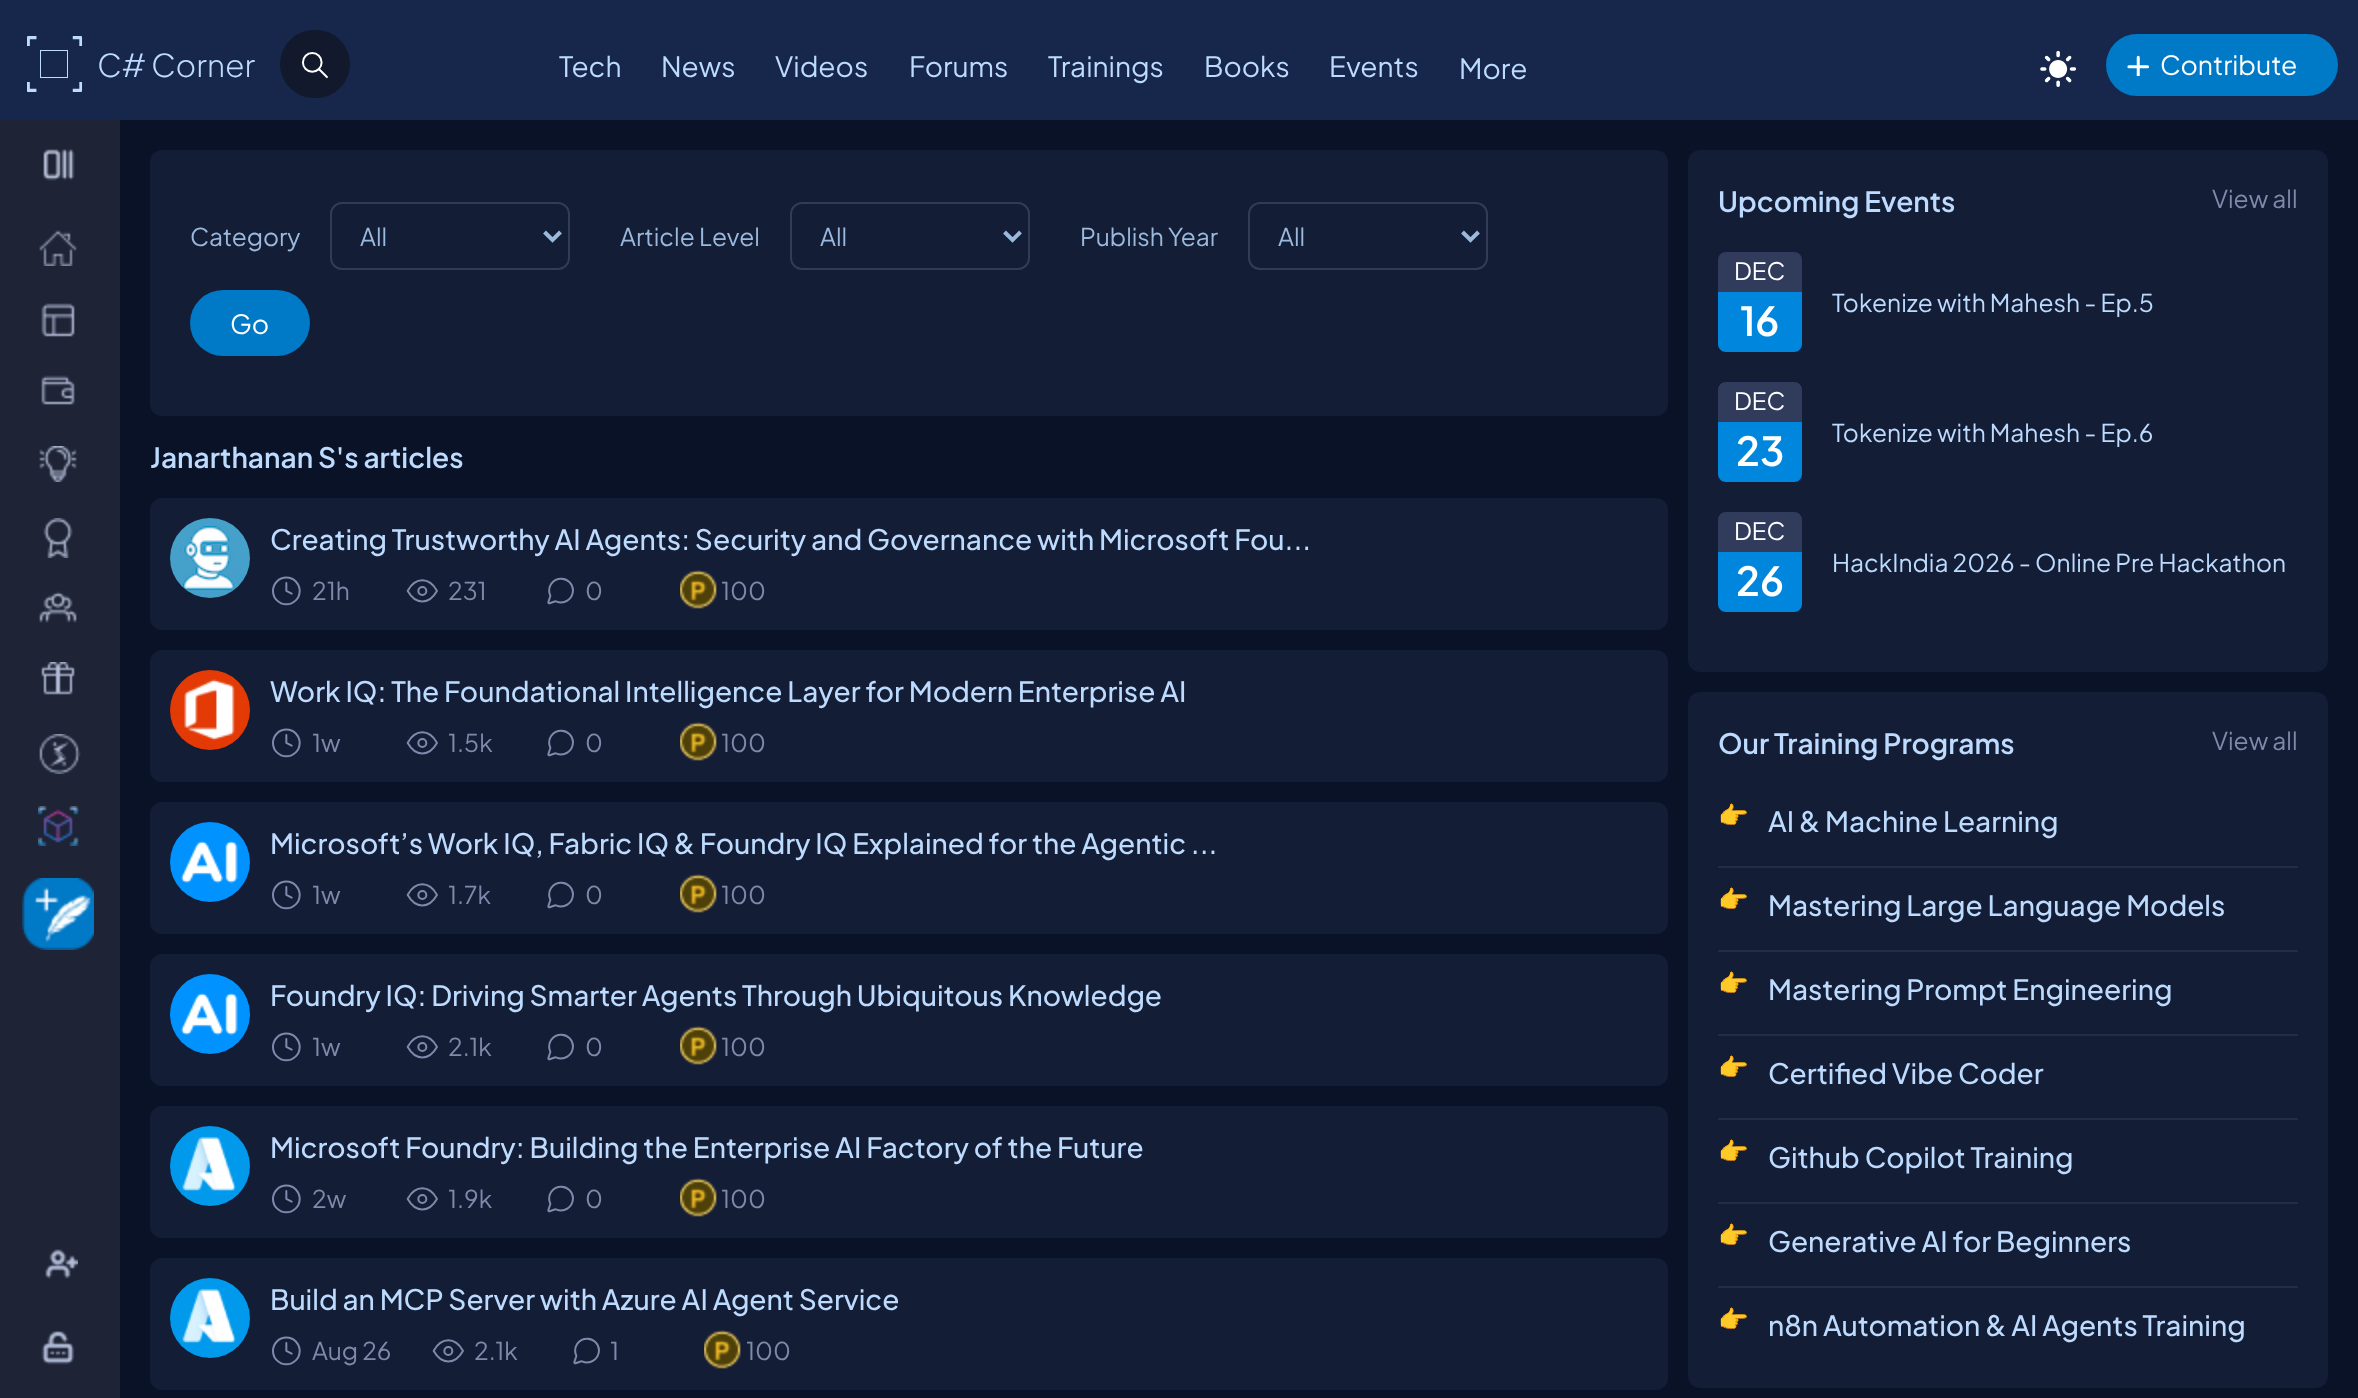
<svg xmlns="http://www.w3.org/2000/svg" width="2358" height="1398" viewBox="0 0 2358 1398">
  <style>
    .t1 { font: 300 31.5px Plus Jakarta Sans; fill: #bcdbfe; }
    .t2 { font: 28px Plus Jakarta Sans; fill: #bcdbfe; }
    .t3 { font: 26.5px Plus Jakarta Sans; fill: #fff; }
    .t4 { font: 24.5px Plus Jakarta Sans; fill: #9ab9dc; }
    .t5 { font: 600 28px Plus Jakarta Sans; fill: #bcdbfe; }
    .t6 { font: 500 28px Plus Jakarta Sans; fill: #bcdbfe; }
    .t7 { font: 24.5px Plus Jakarta Sans; fill: #7f8aab; }
    .t8 { font: 24px Plus Jakarta Sans; fill: #fff; }
    .t9 { font: 600 40px Plus Jakarta Sans; fill: #fff; }
    .t10 { font: 24.5px Plus Jakarta Sans; fill: #bcdbfe; }
    .t11 { font: 24.5px Noto Color Emoji; fill: #9ab9dc; }
  </style>
  <rect width="100%" height="100%" fill="#091227"/>
  <rect x="0" y="0" width="2358" height="120" fill="#17264b"/>
  <image x="27" y="36" width="56" height="56" href="images/1.png"/>
  <rect x="40.5" y="50.5" width="27" height="27" fill="none" stroke="#bcdbfe"/>
  <text x="97" y="77" class="t1">C# Corner</text>
  <rect x="280" y="30" width="70" height="68" rx="34" fill="#12192d"/>
  <image x="301" y="52" width="27" height="27" href="images/2.png"/>
  <text x="559" y="77" class="t2">Tech</text>
  <text x="661" y="77" class="t2">News</text>
  <text x="775" y="77" class="t2">Videos</text>
  <text x="909" y="77" class="t2">Forums</text>
  <text x="1048" y="77" class="t2">Trainings</text>
  <text x="1204" y="77" class="t2">Books</text>
  <text x="1329" y="77" class="t2">Events</text>
  <text x="1459" y="79" class="t2">More</text>
  <image x="2040" y="51" width="36" height="36" href="images/3.png"/>
  <rect x="2106" y="34" width="232" height="62" rx="31" fill="#0079c7"/>
  <image x="2127" y="55" width="22" height="21" href="images/4.png"/>
  <text x="2160" y="75" class="t3">Contribute</text>
  <rect x="0" y="120" width="120" height="1278" fill="#1e2435"/>
  <image x="43" y="149" width="32" height="32" href="images/5.png"/>
  <image x="39" y="230" width="38" height="36" href="images/6.png"/>
  <image x="41" y="303" width="34" height="34" href="images/7.png"/>
  <image x="41" y="375" width="34" height="30" href="images/8.png"/>
  <image x="39" y="446" width="38" height="36" href="images/9.png"/>
  <image x="43" y="518" width="30" height="40" href="images/10.png"/>
  <image x="39" y="591" width="38" height="32" href="images/11.png"/>
  <image x="41" y="662" width="34" height="33" href="images/12.png"/>
  <image x="39" y="734" width="42" height="40" href="images/13.png"/>
  <image x="38" y="806" width="41" height="40" href="images/14.png"/>
  <image x="22" y="878" width="72" height="72" href="images/15.png"/>
  <image x="45" y="1249" width="33" height="30" href="images/16.png"/>
  <image x="41" y="1330" width="33" height="35" href="images/17.png"/>
  <rect x="150" y="150" width="1518" height="266" rx="12" fill="#141d36"/>
  <text x="190" y="246" class="t4">Category</text>
  <rect x="331" y="203" width="238" height="66" rx="11" fill="none" stroke="#323b57" stroke-width="2"/>
  <path d="M544.5 232L552.5 240L560.5 232" fill="none" stroke="#9ab9dc" stroke-width="4"/>
  <text x="360" y="246" class="t4">All</text>
  <text x="620" y="246" class="t4">Article Level</text>
  <rect x="791" y="203" width="238" height="66" rx="11" fill="none" stroke="#323b57" stroke-width="2"/>
  <path d="M1004.5 232L1012.5 240L1020.5 232" fill="none" stroke="#9ab9dc" stroke-width="4"/>
  <text x="820" y="246" class="t4">All</text>
  <text x="1080" y="246" class="t4">Publish Year</text>
  <rect x="1249" y="203" width="238" height="66" rx="11" fill="none" stroke="#323b57" stroke-width="2"/>
  <path d="M1462.5 232L1470.5 240L1478.5 232" fill="none" stroke="#9ab9dc" stroke-width="4"/>
  <text x="1278" y="246" class="t4">All</text>
  <rect x="190" y="290" width="120" height="66" rx="33" fill="#0079c7"/>
  <text x="230" y="334" class="t3">Go</text>
  <text x="150" y="468" class="t5">Janarthanan S's articles</text>
  <rect x="150" y="498" width="1518" height="132" rx="12" fill="#141d36"/>
  <circle cx="210" cy="558" r="40" fill="#12192d"/>
  <image x="170" y="518" width="80" height="80" href="images/18.png"/>
  <text x="270" y="550" class="t6">Creating Trustworthy AI Agents: Security and Governance with Microsoft Fou...</text>
  <image x="272" y="576" width="29" height="30" href="images/19.png"/>
  <text x="312" y="600" class="t7">21h</text>
  <image x="406" y="579" width="32" height="24" href="images/20.png"/>
  <text x="448" y="600" class="t7">231</text>
  <image x="547" y="577" width="27" height="28" href="images/21.png"/>
  <text x="585" y="600" class="t7">0</text>
  <image x="680" y="570" width="37" height="39" href="images/22.png"/>
  <text x="721" y="600" class="t7">100</text>
  <rect x="150" y="650" width="1518" height="132" rx="12" fill="#141d36"/>
  <circle cx="210" cy="710" r="40" fill="#12192d"/>
  <image x="170" y="670" width="80" height="80" href="images/23.png"/>
  <text x="270" y="702" class="t6">Work IQ: The Foundational Intelligence Layer for Modern Enterprise AI</text>
  <image x="272" y="728" width="29" height="30" href="images/19.png"/>
  <text x="312" y="752" class="t7">1w</text>
  <image x="406" y="731" width="32" height="24" href="images/20.png"/>
  <text x="448" y="752" class="t7">1.5k</text>
  <image x="547" y="729" width="27" height="28" href="images/21.png"/>
  <text x="585" y="752" class="t7">0</text>
  <image x="680" y="722" width="37" height="39" href="images/22.png"/>
  <text x="721" y="752" class="t7">100</text>
  <rect x="150" y="802" width="1518" height="132" rx="12" fill="#141d36"/>
  <circle cx="210" cy="862" r="40" fill="#12192d"/>
  <image x="170" y="822" width="80" height="80" href="images/24.png"/>
  <text x="270" y="854" class="t6">Microsoft’s Work IQ, Fabric IQ &amp; Foundry IQ Explained for the Agentic ...</text>
  <image x="272" y="880" width="29" height="30" href="images/19.png"/>
  <text x="312" y="904" class="t7">1w</text>
  <image x="406" y="883" width="32" height="24" href="images/20.png"/>
  <text x="448" y="904" class="t7">1.7k</text>
  <image x="547" y="881" width="27" height="28" href="images/21.png"/>
  <text x="585" y="904" class="t7">0</text>
  <image x="680" y="874" width="37" height="39" href="images/22.png"/>
  <text x="721" y="904" class="t7">100</text>
  <rect x="150" y="954" width="1518" height="132" rx="12" fill="#141d36"/>
  <circle cx="210" cy="1014" r="40" fill="#12192d"/>
  <image x="170" y="974" width="80" height="80" href="images/25.png"/>
  <text x="270" y="1006" class="t6">Foundry IQ: Driving Smarter Agents Through Ubiquitous Knowledge</text>
  <image x="272" y="1032" width="29" height="30" href="images/19.png"/>
  <text x="312" y="1056" class="t7">1w</text>
  <image x="406" y="1035" width="32" height="24" href="images/20.png"/>
  <text x="448" y="1056" class="t7">2.1k</text>
  <image x="547" y="1033" width="27" height="28" href="images/21.png"/>
  <text x="585" y="1056" class="t7">0</text>
  <image x="680" y="1026" width="37" height="39" href="images/22.png"/>
  <text x="721" y="1056" class="t7">100</text>
  <rect x="150" y="1106" width="1518" height="132" rx="12" fill="#141d36"/>
  <circle cx="210" cy="1166" r="40" fill="#12192d"/>
  <image x="170" y="1126" width="80" height="80" href="images/26.png"/>
  <text x="270" y="1158" class="t6">Microsoft Foundry: Building the Enterprise AI Factory of the Future</text>
  <image x="272" y="1184" width="29" height="30" href="images/19.png"/>
  <text x="312" y="1208" class="t7">2w</text>
  <image x="406" y="1187" width="32" height="24" href="images/20.png"/>
  <text x="448" y="1208" class="t7">1.9k</text>
  <image x="547" y="1185" width="27" height="28" href="images/21.png"/>
  <text x="585" y="1208" class="t7">0</text>
  <image x="680" y="1178" width="37" height="39" href="images/22.png"/>
  <text x="721" y="1208" class="t7">100</text>
  <rect x="150" y="1258" width="1518" height="132" rx="12" fill="#141d36"/>
  <circle cx="210" cy="1318" r="40" fill="#12192d"/>
  <image x="170" y="1278" width="80" height="80" href="images/26.png"/>
  <text x="270" y="1310" class="t6">Build an MCP Server with Azure AI Agent Service</text>
  <image x="272" y="1336" width="29" height="30" href="images/19.png"/>
  <text x="312" y="1360" class="t7">Aug 26</text>
  <image x="432" y="1339" width="32" height="24" href="images/20.png"/>
  <text x="474" y="1360" class="t7">2.1k</text>
  <image x="573" y="1337" width="27" height="28" href="images/21.png"/>
  <text x="610" y="1360" class="t7">1</text>
  <image x="704" y="1330" width="37" height="39" href="images/22.png"/>
  <text x="746" y="1360" class="t7">100</text>
  <rect x="1688" y="150" width="640" height="522" rx="12" fill="#141d36"/>
  <text x="1718" y="212" class="t5">Upcoming Events</text>
  <text x="2212" y="208" class="t7">View all</text>
  <path d="M1726 252H1794C1798.5 252 1802 255.5 1802 260V292H1718V260C1718 255.5 1721.5 252 1726 252Z" fill="#313c5c"/>
  <path d="M1718 292H1802V344C1802 348.5 1798.5 352 1794 352H1726C1721.5 352 1718 348.5 1718 344Z" fill="#0086dc"/>
  <text x="1734" y="280" class="t8">DEC</text>
  <text x="1740" y="336" class="t9">16</text>
  <text x="1832" y="312" class="t10">Tokenize with Mahesh - Ep.5</text>
  <path d="M1726 382H1794C1798.5 382 1802 385.5 1802 390V422H1718V390C1718 385.5 1721.5 382 1726 382Z" fill="#313c5c"/>
  <path d="M1718 422H1802V474C1802 478.5 1798.5 482 1794 482H1726C1721.5 482 1718 478.5 1718 474Z" fill="#0086dc"/>
  <text x="1734" y="410" class="t8">DEC</text>
  <text x="1736" y="466" class="t9">23</text>
  <text x="1832" y="442" class="t10">Tokenize with Mahesh - Ep.6</text>
  <path d="M1726 512H1794C1798.5 512 1802 515.5 1802 520V552H1718V520C1718 515.5 1721.5 512 1726 512Z" fill="#313c5c"/>
  <path d="M1718 552H1802V604C1802 608.5 1798.5 612 1794 612H1726C1721.5 612 1718 608.5 1718 604Z" fill="#0086dc"/>
  <text x="1734" y="540" class="t8">DEC</text>
  <text x="1736" y="596" class="t9">26</text>
  <text x="1832" y="572" class="t10">HackIndia 2026 - Online Pre Hackathon</text>
  <rect x="1688" y="692" width="640" height="696" rx="12" fill="#141d36"/>
  <text x="1718" y="754" class="t5">Our Training Programs</text>
  <text x="2212" y="750" class="t7">View all</text>
  <rect x="1718" y="866" width="580" height="2" fill="#212d47"/>
  <text x="1718" y="824" class="t11">👉</text>
  <text x="1768" y="832" class="t6">AI &amp; Machine Learning</text>
  <rect x="1718" y="950" width="580" height="2" fill="#212d47"/>
  <text x="1718" y="908" class="t11">👉</text>
  <text x="1768" y="916" class="t6">Mastering Large Language Models</text>
  <rect x="1718" y="1034" width="580" height="2" fill="#212d47"/>
  <text x="1718" y="992" class="t11">👉</text>
  <text x="1768" y="1000" class="t6">Mastering Prompt Engineering</text>
  <rect x="1718" y="1118" width="580" height="2" fill="#212d47"/>
  <text x="1718" y="1076" class="t11">👉</text>
  <text x="1768" y="1084" class="t6">Certified Vibe Coder</text>
  <rect x="1718" y="1202" width="580" height="2" fill="#212d47"/>
  <text x="1718" y="1160" class="t11">👉</text>
  <text x="1768" y="1168" class="t6">Github Copilot Training</text>
  <rect x="1718" y="1286" width="580" height="2" fill="#212d47"/>
  <text x="1718" y="1244" class="t11">👉</text>
  <text x="1768" y="1252" class="t6">Generative AI for Beginners</text>
  <text x="1718" y="1328" class="t11">👉</text>
  <text x="1768" y="1336" class="t6">n8n Automation &amp; AI Agents Training</text>
</svg>
